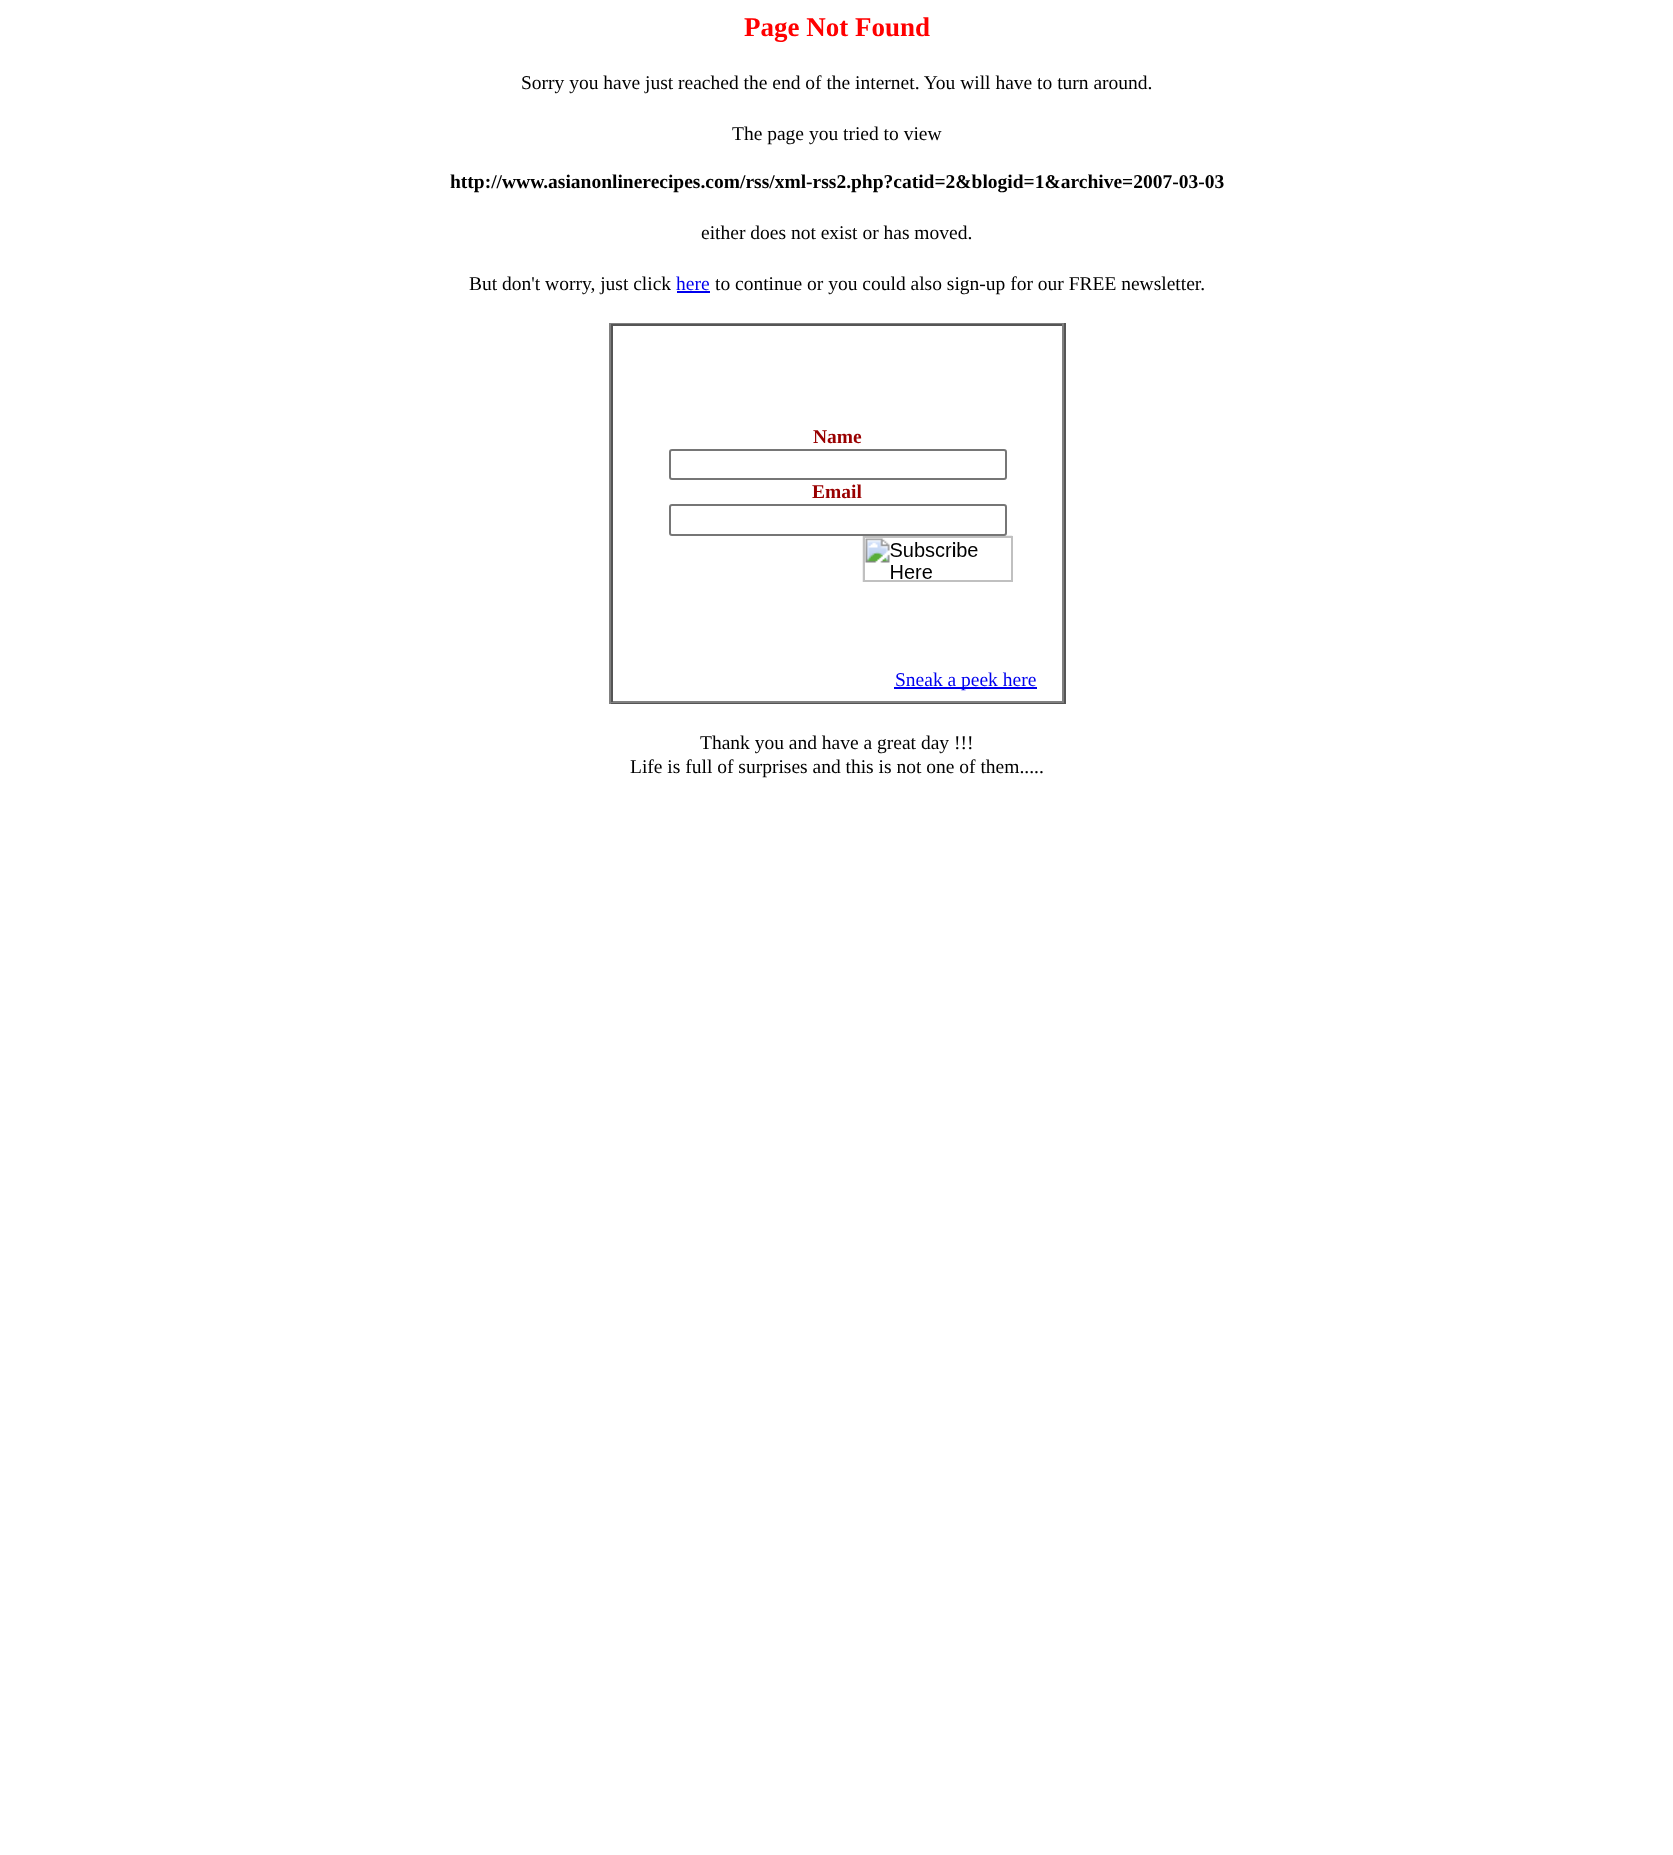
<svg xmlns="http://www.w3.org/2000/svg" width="1673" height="1855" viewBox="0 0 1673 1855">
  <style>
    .t1 { font: bold 27px Liberation Serif; fill: #f00; }
    .t2 { font: 19.5px Liberation Serif; fill: #000; }
    .t3 { font: bold 19.5px Liberation Serif; fill: #000; }
    .t4 { font: 19.5px Liberation Serif; fill: #00e; }
    .t5 { font: bold 19.5px Liberation Serif; fill: #900; }
    .t6 { font: 20px Liberation Sans; fill: #000; }
  </style>
  <rect width="100%" height="100%" fill="#fff"/>
  <text x="744" y="36" class="t1">Page Not Found</text>
  <text x="521" y="89" class="t2">Sorry you have just reached the end of the internet. You will have to turn around.</text>
  <text x="732" y="140" class="t2">The page you tried to view</text>
  <text x="450" y="188" class="t3">http://www.asianonlinerecipes.com/rss/xml-rss2.php?catid=2&amp;blogid=1&amp;archive=2007-03-03</text>
  <text x="701" y="239" class="t2">either does not exist or has moved.</text>
  <text x="469" y="290" class="t2">But don't worry, just click</text>
  <text x="676" y="290" class="t4">here</text>
  <rect x="677" y="291" width="33" height="2" fill="#00e"/>
  <text x="715" y="290" class="t2">to continue or you could also sign-up for our FREE newsletter.</text>
  <rect x="609" y="323" width="456" height="1" fill="#808080"/>
  <rect x="1064" y="323" width="2" height="381" fill="#555"/>
  <rect x="609" y="702" width="456" height="2" fill="#555"/>
  <rect x="609" y="323" width="2" height="381" fill="#808080"/>
  <rect x="611" y="324" width="453" height="2" fill="#555"/>
  <rect x="1062" y="324" width="2" height="378" fill="#808080"/>
  <rect x="611" y="701" width="453" height="2" fill="#808080"/>
  <rect x="611" y="324" width="2" height="378" fill="#555"/>
  <text x="813" y="443" class="t5">Name</text>
  <rect x="670" y="450" width="336" height="29" rx="2" fill="none" stroke="#767676" stroke-width="2"/>
  <text x="812" y="498" class="t5">Email</text>
  <image x="862" y="535" width="151" height="47" href="images/1.png"/>
  <rect x="670" y="505" width="336" height="30" rx="2" fill="#fff" stroke="#767676" stroke-width="2"/>
  <rect x="864" y="537" width="148" height="44" fill="none" stroke="#c0c0c0" stroke-width="2"/>
  <text x="952" y="557" class="t6">i</text>
  <rect x="894" y="687" width="143" height="2" fill="#00e"/>
  <text x="895" y="686" class="t4">Sneak a peek here</text>
  <text x="700" y="749" class="t2">Thank you and have a great day !!!</text>
  <text x="630" y="773" class="t2">Life is full of surprises and this is not one of them.....</text>
</svg>
